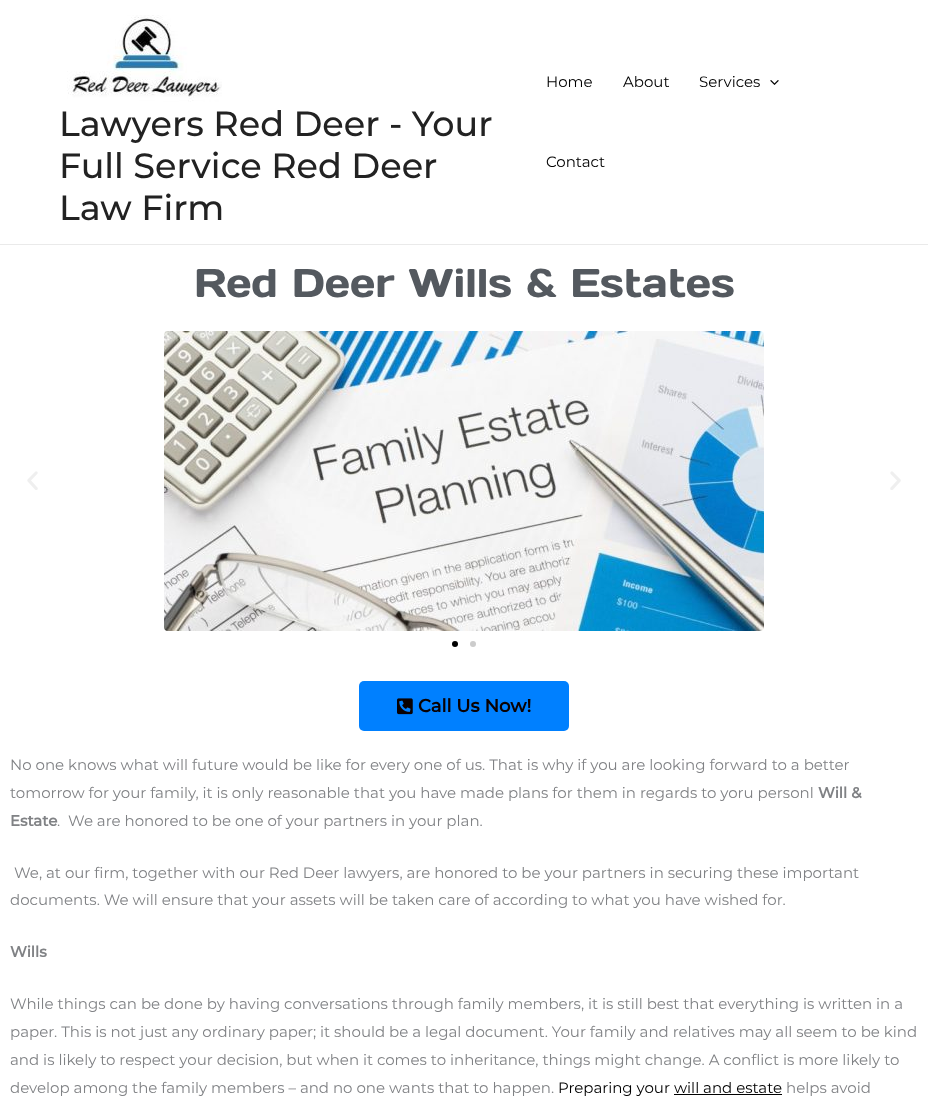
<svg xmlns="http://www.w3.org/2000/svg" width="928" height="1115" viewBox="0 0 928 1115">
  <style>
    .t1 { font: 500 35px Montserrat; fill: #222; }
    .t2 { font: 15px Montserrat; fill: #000; }
    .t3 { font: 40px Days One; fill: #54595f; }
    .t4 { font: bold 18px Montserrat; fill: #0a0102; }
    .t5 { font: 15px Montserrat; fill: #808285; }
    .t6 { font: bold 15px Montserrat; fill: #808285; }
  </style>
  <rect width="100%" height="100%" fill="#fff"/>
  <rect x="0" y="244" width="928" height="1" fill="#eaeaea"/>
  <image x="67" y="15" width="155" height="87" href="images/1.png"/>
  <text x="59" y="136" class="t1">Lawyers Red Deer - Your</text>
  <text x="59" y="178" class="t1">Full Service Red Deer</text>
  <text x="59" y="220" class="t1">Law Firm</text>
  <text x="546" y="87" class="t2">Home</text>
  <text x="623" y="87" class="t2">About</text>
  <text x="699" y="87" class="t2">Services</text>
  <image x="770" y="80" width="9" height="5" href="images/2.png"/>
  <text x="546" y="167" class="t2">Contact</text>
  <text x="194" y="297" class="t3">Red Deer Wills &amp; Estates</text>
  <image x="27" y="471" width="11" height="19" href="images/3.png"/>
  <image x="164" y="331" width="600" height="300" href="images/4.png"/>
  <image x="890" y="471" width="11" height="19" href="images/5.png"/>
  <circle cx="455" cy="644" r="3" fill="#000"/>
  <circle cx="473" cy="644" r="3" fill="#ccc"/>
  <rect x="359" y="681" width="210" height="50" rx="5" fill="#0080ff"/>
  <image x="397" y="698" width="16" height="17" href="images/6.png"/>
  <text x="418" y="712" class="t4">Call Us Now!</text>
  <text x="10" y="770" class="t5">No one knows what will future would be like for every one of us. That is why if you are looking forward to a better</text>
  <text x="10" y="798" class="t5">tomorrow for your family, it is only reasonable that you have made plans for them in regards to yoru personl</text>
  <text x="818" y="798" class="t6">Will &amp;</text>
  <text x="10" y="826" class="t6">Estate</text>
  <text x="57" y="826" class="t5" xml:space="preserve">.  We are honored to be one of your partners in your plan.</text>
  <text x="14" y="878" class="t5">We, at our firm, together with our Red Deer lawyers, are honored to be your partners in securing these important</text>
  <text x="10" y="905" class="t5">documents. We will ensure that your assets will be taken care of according to what you have wished for.</text>
  <text x="10" y="957" class="t6">Wills</text>
  <text x="10" y="1009" class="t5">While things can be done by having conversations through family members, it is still best that everything is written in a</text>
  <text x="10" y="1037" class="t5">paper. This is not just any ordinary paper; it should be a legal document. Your family and relatives may all seem to be kind</text>
  <text x="10" y="1065" class="t5">and is likely to respect your decision, but when it comes to inheritance, things might change. A conflict is more likely to</text>
  <text x="10" y="1093" class="t5">develop among the family members – and no one wants that to happen.</text>
  <text x="558" y="1093" class="t2">Preparing your will and estate</text>
  <rect x="674" y="1094" width="108" height="1" fill="#000"/>
  <text x="786" y="1093" class="t5">helps avoid</text>
</svg>
